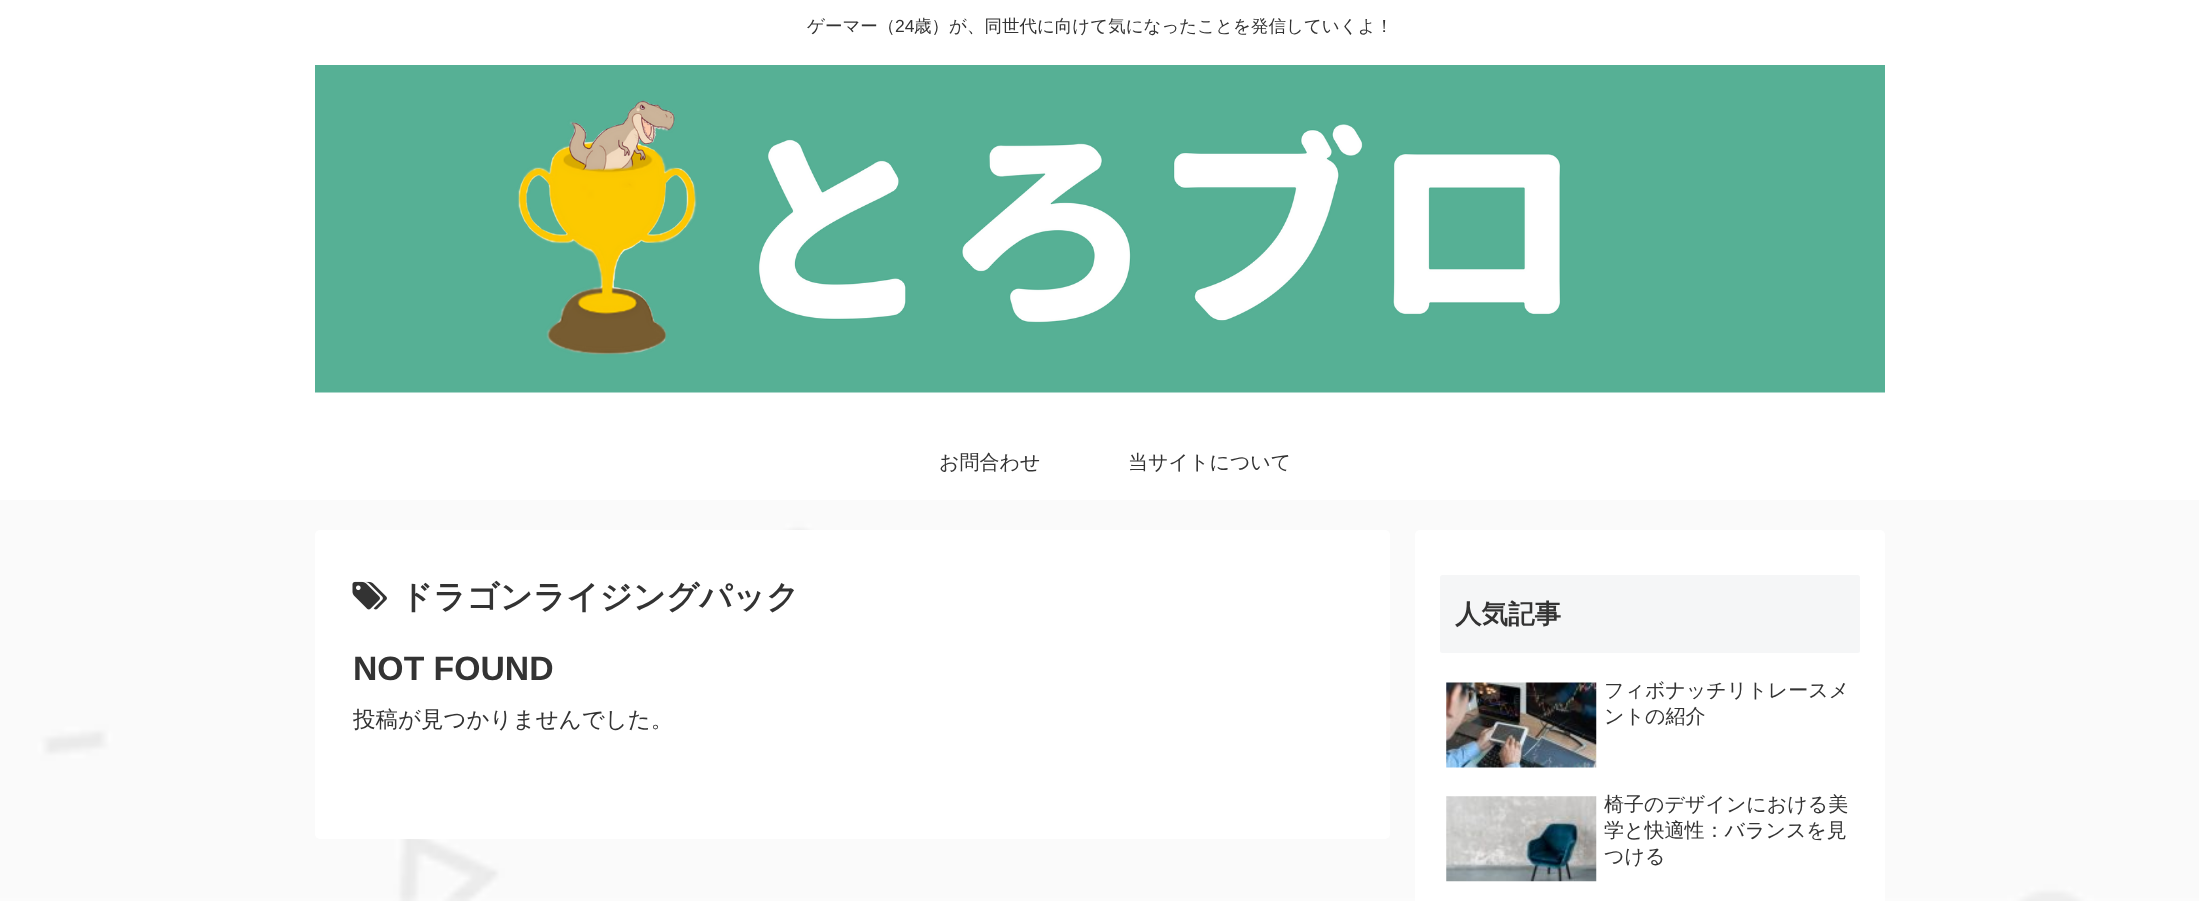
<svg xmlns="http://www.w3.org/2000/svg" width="2199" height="901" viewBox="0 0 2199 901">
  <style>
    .t1 { font: 500 17.5px WenQuanYi Zen Hei; fill: #333; }
    .t2 { font: 17.5px Liberation Sans; fill: #333; }
    .t3 { font: 500 20px WenQuanYi Zen Hei; fill: #333; }
    .t4 { font: bold 32.5px WenQuanYi Zen Hei; fill: #333; }
    .t5 { font: bold 33.75px Liberation Sans; fill: #333; }
    .t6 { font: 500 22.5px WenQuanYi Zen Hei; fill: #333; }
    .t7 { font: bold 26.5px WenQuanYi Zen Hei; fill: #333; }
  </style>
  <rect width="100%" height="100%" fill="#fff"/>
  <image x="0" y="500" width="2199" height="401" href="images/1.png"/>
  <text x="807" y="32" class="t1">ゲーマー（</text>
  <text x="895" y="32" class="t2">24</text>
  <text x="914" y="32" class="t1">歳）が、同世代に向けて気になったことを発信していくよ！</text>
  <image x="315" y="65" width="1570" height="328" href="images/2.png"/>
  <text x="939" y="469" class="t3">お問合わせ</text>
  <text x="1128" y="469" class="t3">当サイトについて</text>
  <rect x="315" y="530" width="1075" height="309" rx="5" fill="#fff"/>
  <image x="352" y="581" width="35" height="29" href="images/3.png"/>
  <text x="400" y="608" class="t4">ドラゴンライジングパック</text>
  <text x="353" y="680" class="t5">NOT FOUND</text>
  <text x="353" y="727" class="t6">投稿が見つかりませんでした。</text>
  <rect x="1415" y="530" width="470" height="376" rx="5" fill="#fff"/>
  <rect x="1440" y="575" width="420" height="78" rx="2.5" fill="#f5f6f7"/>
  <text x="1455" y="623" class="t7">人気記事</text>
  <image x="1446" y="682" width="151" height="86" href="images/4.png"/>
  <text x="1604" y="697" class="t3">フィボナッチリトレースメ</text>
  <text x="1604" y="723" class="t3">ントの紹介</text>
  <image x="1446" y="796" width="151" height="86" href="images/5.png"/>
  <text x="1604" y="811" class="t3">椅子のデザインにおける美</text>
  <text x="1604" y="837" class="t3">学と快適性：バランスを見</text>
  <text x="1604" y="863" class="t3">つける</text>
</svg>
